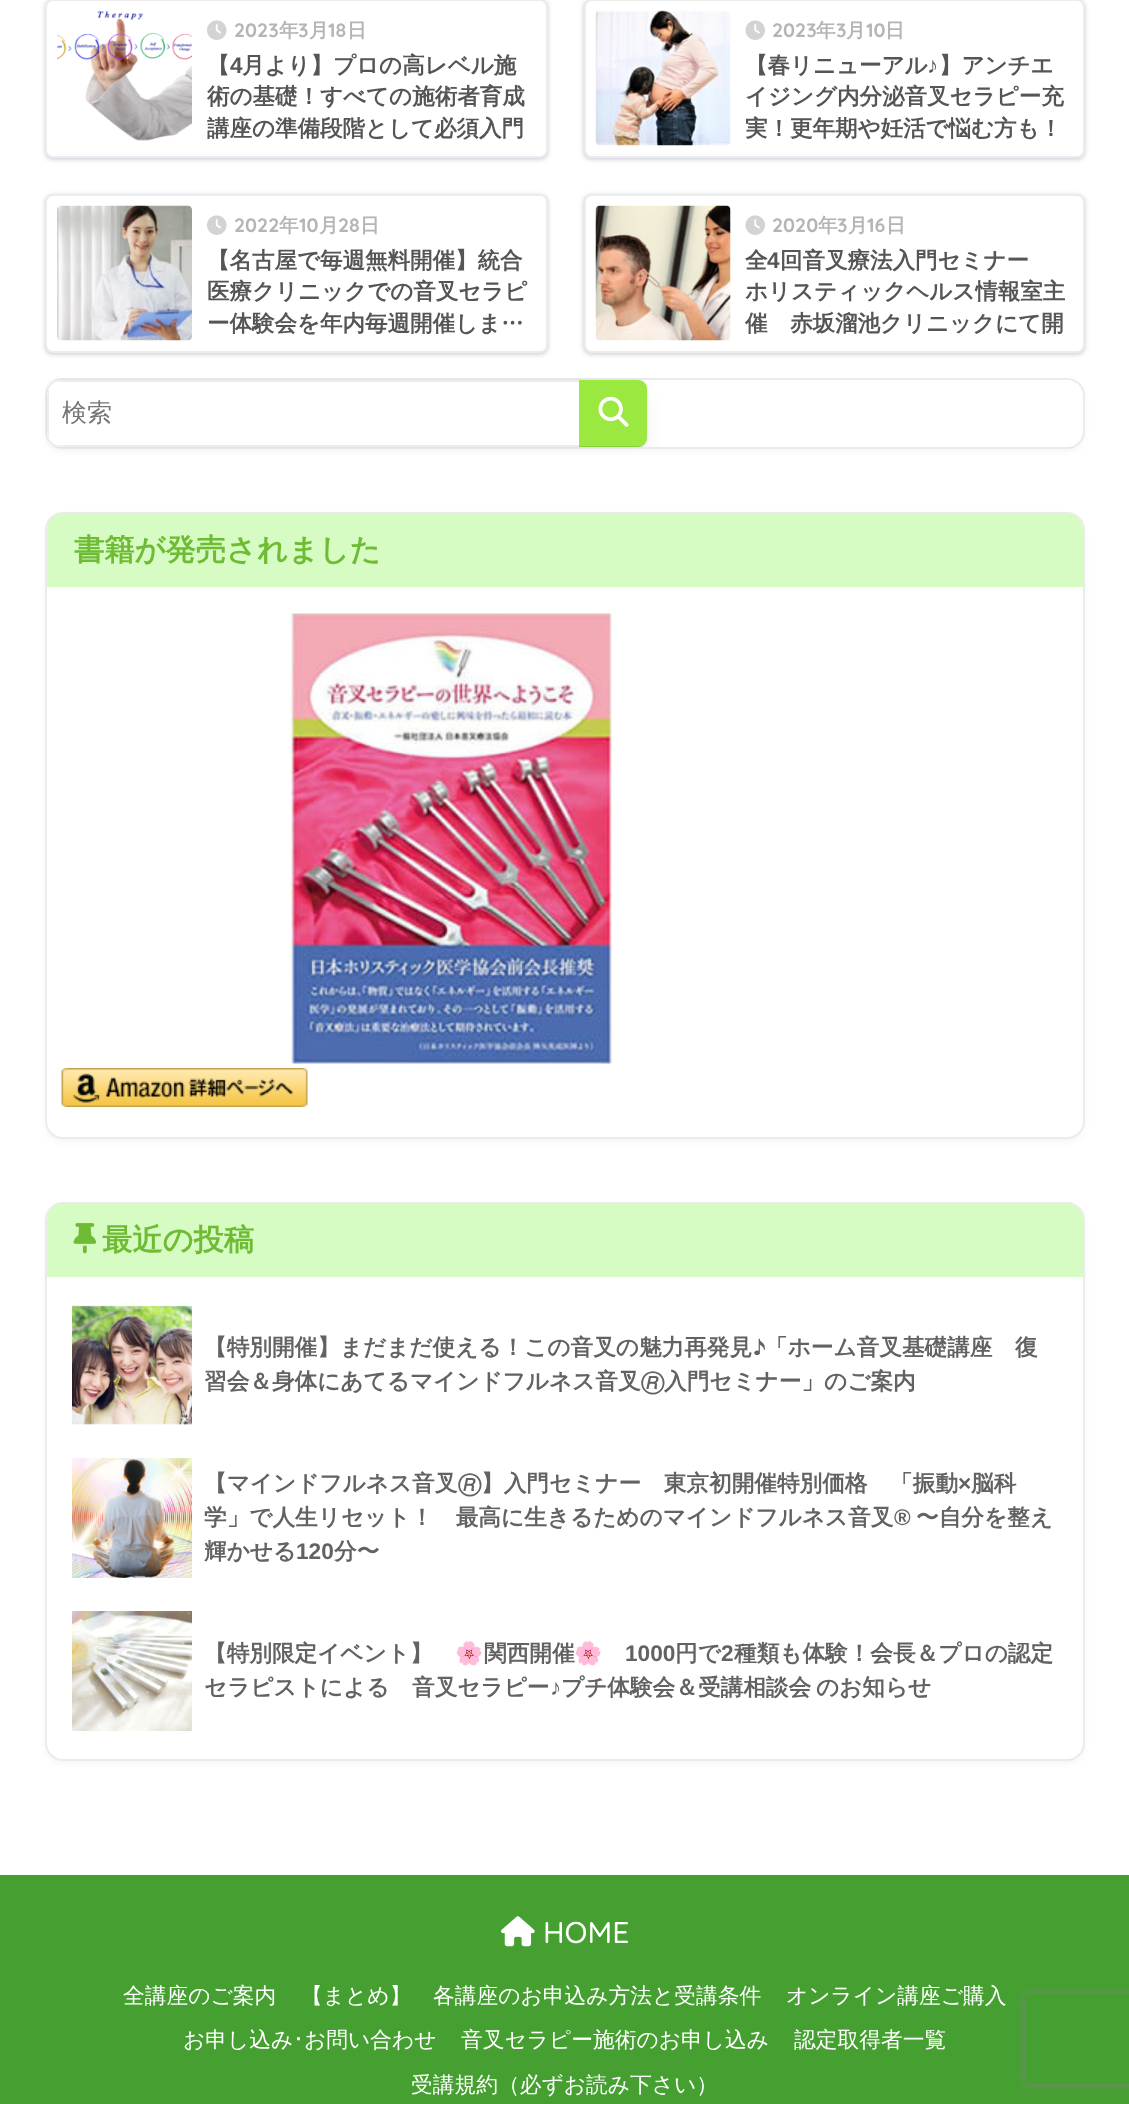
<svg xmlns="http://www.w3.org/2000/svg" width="1129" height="2104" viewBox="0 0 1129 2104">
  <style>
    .t1 { font: bold 19.5px Quicksand; fill: #b5b5b5; }
    .t2 { font: bold 19.5px WenQuanYi Zen Hei; fill: #b5b5b5; }
    .t3 { font: bold 22.5px WenQuanYi Zen Hei; fill: #555; }
    .t4 { font: bold 22.5px Liberation Sans; fill: #555; }
    .t5 { font: 500 25px WenQuanYi Zen Hei; fill: #757575; }
    .t6 { font: bold 30.25px WenQuanYi Zen Hei; fill: #6fbc34; }
    .t7 { font: bold 22.65px WenQuanYi Zen Hei; fill: #626262; }
    .t8 { font: bold 22.65px FreeSans; fill: #626262; }
    .t9 { font: bold 22.65px Liberation Sans; fill: #626262; }
    .t10 { font: bold 22.65px Noto Color Emoji; fill: #626262; }
    .t11 { font: 500 30px Quicksand; fill: #fff; }
    .t12 { font: 500 21.75px WenQuanYi Zen Hei; fill: #fff; }
    .t13 { font: 21.75px IPAPGothic; fill: #fff; }
  </style>
  <defs>
    <clipPath id="clip1"><rect x="746" y="48" width="327" height="95"/></clipPath>
    <clipPath id="clip2"><path d="M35 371H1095V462H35ZM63 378H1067C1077 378 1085 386 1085 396V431C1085 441 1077 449 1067 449H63C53 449 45 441 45 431V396C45 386 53 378 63 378Z" clip-rule="evenodd"/></clipPath>
    <clipPath id="clip3"><path d="M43 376H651V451H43ZM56 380H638C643 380 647 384 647 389V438C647 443 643 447 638 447H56C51 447 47 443 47 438V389C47 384 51 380 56 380Z" clip-rule="evenodd"/></clipPath>
    <clipPath id="clip4"><rect x="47" y="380" width="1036" height="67" rx="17"/></clipPath>
    <clipPath id="clip5"><path d="M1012 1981H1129V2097H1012ZM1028 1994H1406C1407.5 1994 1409 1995.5 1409 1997V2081C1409 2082.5 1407.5 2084 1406 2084H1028C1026.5 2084 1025 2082.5 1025 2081V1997C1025 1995.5 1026.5 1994 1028 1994Z" clip-rule="evenodd"/></clipPath>
  </defs>
  <rect width="100%" height="100%" fill="#fff"/>
  <rect x="44" y="-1" width="505" height="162" rx="9" fill="#182c541a" filter="blur(2px)"/>
  <rect x="45" y="0" width="503" height="159" rx="8" fill="#182c541a" filter="blur(1.5px)"/>
  <rect x="46" y="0" width="501" height="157" rx="7" fill="#fff" stroke="#ececec" stroke-width="2"/>
  <image x="57" y="11" width="135" height="130" href="images/1.png"/>
  <image x="207" y="20" width="20" height="20" href="images/2.png"/>
  <text x="234" y="37" class="t1">2023</text>
  <text x="279" y="37" class="t2">年</text>
  <text x="298" y="37" class="t1">3</text>
  <text x="309" y="37" class="t2">月</text>
  <text x="328" y="37" class="t1">18</text>
  <text x="347" y="37" class="t2">日</text>
  <text x="207" y="73" class="t3">【</text>
  <text x="230" y="73" class="t4">4</text>
  <text x="242" y="73" class="t3">月より】プロの高レベル施</text>
  <text x="207" y="104" class="t3">術の基礎！すべての施術者育成</text>
  <text x="207" y="136" class="t3">講座の準備段階として必須入門</text>
  <rect x="582" y="-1" width="504" height="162" rx="9" fill="#182c541a" filter="blur(2px)"/>
  <rect x="584" y="0" width="501" height="159" rx="8" fill="#182c541a" filter="blur(1.5px)"/>
  <rect x="585" y="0" width="499" height="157" rx="7" fill="#fff" stroke="#ececec" stroke-width="2"/>
  <image x="595" y="10" width="136" height="136" href="images/3.png"/>
  <image x="745" y="20" width="20" height="20" href="images/4.png"/>
  <text x="772" y="37" class="t1">2023</text>
  <text x="816" y="37" class="t2">年</text>
  <text x="836" y="37" class="t1">3</text>
  <text x="846" y="37" class="t2">月</text>
  <text x="866" y="37" class="t1">10</text>
  <text x="885" y="37" class="t2">日</text>
  <text x="745" y="73" class="t3">【春リニューアル</text>
  <text x="927" y="73" class="t4">♪</text>
  <text x="939" y="73" class="t3">】アンチエ</text>
  <text x="745" y="104" class="t3">イジング内分泌音叉セラピー充</text>
  <g clip-path="url(#clip1)">
    <text x="745" y="136" class="t3">実！更年期や妊活で悩む方も！</text>
  </g>
  <rect x="44" y="194" width="505" height="162" rx="9" fill="#182c541a" filter="blur(2px)"/>
  <rect x="45" y="195" width="503" height="159" rx="8" fill="#182c541a" filter="blur(1.5px)"/>
  <rect x="46" y="195" width="501" height="157" rx="7" fill="#fff" stroke="#ececec" stroke-width="2"/>
  <image x="57" y="205" width="135" height="136" href="images/5.png"/>
  <image x="207" y="215" width="20" height="20" href="images/2.png"/>
  <text x="234" y="232" class="t1">2022</text>
  <text x="279" y="232" class="t2">年</text>
  <text x="299" y="232" class="t1">10</text>
  <text x="319" y="232" class="t2">月</text>
  <text x="338" y="232" class="t1">28</text>
  <text x="360" y="232" class="t2">日</text>
  <text x="207" y="268" class="t3">【名古屋で毎週無料開催】統合</text>
  <text x="207" y="299" class="t3">医療クリニックでの音叉セラピ</text>
  <text x="207" y="331" class="t3">ー体験会を年内毎週開催しま…</text>
  <rect x="582" y="194" width="504" height="162" rx="9" fill="#182c541a" filter="blur(2px)"/>
  <rect x="584" y="195" width="501" height="159" rx="8" fill="#182c541a" filter="blur(1.5px)"/>
  <rect x="585" y="195" width="499" height="157" rx="7" fill="#fff" stroke="#ececec" stroke-width="2"/>
  <image x="595" y="205" width="136" height="136" href="images/6.png"/>
  <image x="745" y="215" width="20" height="20" href="images/4.png"/>
  <text x="772" y="232" class="t1">2020</text>
  <text x="818" y="232" class="t2">年</text>
  <text x="837" y="232" class="t1">3</text>
  <text x="848" y="232" class="t2">月</text>
  <text x="867" y="232" class="t1">16</text>
  <text x="886" y="232" class="t2">日</text>
  <text x="745" y="268" class="t3">全</text>
  <text x="767" y="268" class="t4">4</text>
  <text x="780" y="268" class="t3">回音叉療法入門セミナー</text>
  <text x="745" y="299" class="t3">ホリスティックヘルス情報室主</text>
  <text x="745" y="331" class="t3">催　赤坂溜池クリニックにて開</text>
  <g clip-path="url(#clip2)">
    <rect x="45" y="381" width="1040" height="71" rx="18" fill="#4385bb12" filter="blur(3px)"/>
  </g>
  <rect x="46" y="379" width="1038" height="69" rx="17" fill="none" stroke="#00000014" stroke-width="2"/>
  <g clip-path="url(#clip3)">
    <rect x="47" y="380" width="600" height="67" rx="9" fill="#001e641a" filter="blur(1px)"/>
  </g>
  <g clip-path="url(#clip4)">
    <rect x="51" y="393" width="591" height="59" rx="5" fill="#000c421a" filter="blur(10px)"/>
  </g>
  <path d="M64 380H638C643 380 647 384 647 389V438C647 443 643 447 638 447H64C54.5 447 47 439.5 47 430V397C47 387.5 54.5 380 64 380Z" fill="#fff"/>
  <path d="M47 397V430C47 433 48 436 49 438V389C48 391 47 394 47 397ZM64 380C61 380 58 381 56 382H638C642 382 645 385 645 389V438C645 442 642 445 638 445H56C58 446 61 447 64 447H638C643 447 647 443 647 438V389C647 384 643 380 638 380Z" fill="#ececec" fill-rule="evenodd"/>
  <text x="62" y="421" class="t5">検索</text>
  <path d="M579 380H638C643 380 647 384 647 389V438C647 443 643 447 638 447H579Z" fill="#9ae840"/>
  <rect x="579" y="446" width="63" height="1" fill="#0000001a"/>
  <image x="598" y="396" width="31" height="31" href="images/7.png"/>
  <rect x="45" y="515" width="1040" height="627" rx="18" fill="#4385bb12" filter="blur(3px)"/>
  <rect x="45" y="512" width="1040" height="627" rx="18" fill="#fff"/>
  <rect x="46" y="513" width="1038" height="625" rx="17" fill="none" stroke="#00000014" stroke-width="2"/>
  <path d="M64 513H1066C1075.5 513 1083 520.5 1083 530V587H47V530C47 520.5 54.5 513 64 513Z" fill="#d6fcc4"/>
  <text x="74" y="560" class="t6">書籍が発売されました</text>
  <image x="289" y="613" width="325" height="451" href="images/8.png"/>
  <image x="61" y="1068" width="247" height="39" href="images/9.png"/>
  <rect x="45" y="1205" width="1040" height="559" rx="18" fill="#4385bb12" filter="blur(3px)"/>
  <rect x="45" y="1202" width="1040" height="559" rx="18" fill="#fff"/>
  <rect x="46" y="1203" width="1038" height="557" rx="17" fill="none" stroke="#00000014" stroke-width="2"/>
  <path d="M64 1203H1066C1075.5 1203 1083 1210.5 1083 1220V1277H47V1220C47 1210.5 54.5 1203 64 1203Z" fill="#d6fcc4"/>
  <image x="73" y="1223" width="24" height="31" href="images/10.png"/>
  <text x="102" y="1250" class="t6">最近の投稿</text>
  <image x="72" y="1305" width="120" height="120" href="images/11.png"/>
  <text x="204" y="1355" class="t7">【特別開催】まだまだ使える！この音叉の魅力再発見</text>
  <text x="753" y="1355" class="t8">♪</text>
  <text x="765" y="1355" class="t7">「ホーム音叉基礎講座　復</text>
  <text x="204" y="1389" class="t7">習会＆身体にあてるマインドフルネス音叉</text>
  <text x="641" y="1389" class="t8">🄬</text>
  <text x="664" y="1389" class="t7">入門セミナー」のご案内</text>
  <image x="72" y="1458" width="120" height="120" href="images/12.png"/>
  <text x="204" y="1491" class="t7">【マインドフルネス音叉</text>
  <text x="458" y="1491" class="t8">🄬</text>
  <text x="481" y="1491" class="t7">】入門セミナー　東京初開催特別価格　「振動</text>
  <text x="958" y="1491" class="t9">×</text>
  <text x="971" y="1491" class="t7">脳科</text>
  <text x="204" y="1525" class="t7">学」で人生リセット！　最高に生きるためのマインドフルネス音叉</text>
  <text x="894" y="1525" class="t9">®</text>
  <text x="916" y="1525" class="t7">〜自分を整え</text>
  <text x="204" y="1559" class="t7">輝かせる</text>
  <text x="296" y="1559" class="t9">120</text>
  <text x="334" y="1559" class="t7">分〜</text>
  <image x="72" y="1611" width="120" height="120" href="images/13.png"/>
  <text x="204" y="1661" class="t7">【特別限定イベント】</text>
  <text x="455" y="1661" class="t10">🌸</text>
  <text x="484" y="1661" class="t7">関西開催</text>
  <text x="574" y="1661" class="t10">🌸</text>
  <text x="625" y="1661" class="t9">1000</text>
  <text x="675" y="1661" class="t7">円で</text>
  <text x="721" y="1661" class="t9">2</text>
  <text x="734" y="1661" class="t7">種類も体験！会長＆プロの認定</text>
  <text x="204" y="1695" class="t7">セラピストによる　音叉セラピー</text>
  <text x="550" y="1695" class="t9">♪</text>
  <text x="561" y="1695" word-spacing="-2" class="t7">プチ体験会＆受講相談会 のお知らせ</text>
  <rect x="0" y="1875" width="1129" height="229" fill="#46a031"/>
  <image x="501" y="1916" width="34" height="31" href="images/14.png"/>
  <text x="543" y="1943" class="t11">HOME</text>
  <text x="123" y="2003" class="t12">全講座のご案内</text>
  <text x="301" y="2003" class="t12">【まとめ】　各講座のお申込み方法と受講条件</text>
  <text x="786" y="2003" class="t12">オンライン講座ご購入</text>
  <text x="183" y="2047" class="t12">お申し込み</text>
  <text x="293" y="2047" class="t13">･</text>
  <text x="304" y="2047" class="t12">お問い合わせ</text>
  <text x="461" y="2047" class="t12">音叉セラピー施術のお申し込み</text>
  <text x="794" y="2047" class="t12">認定取得者一覧</text>
  <text x="411" y="2092" class="t12">受講規約（必ずお読み下さい）</text>
  <g clip-path="url(#clip5)">
    <rect x="1025" y="1994" width="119" height="90" rx="3" fill="#808080" filter="blur(4px)"/>
  </g>
</svg>
